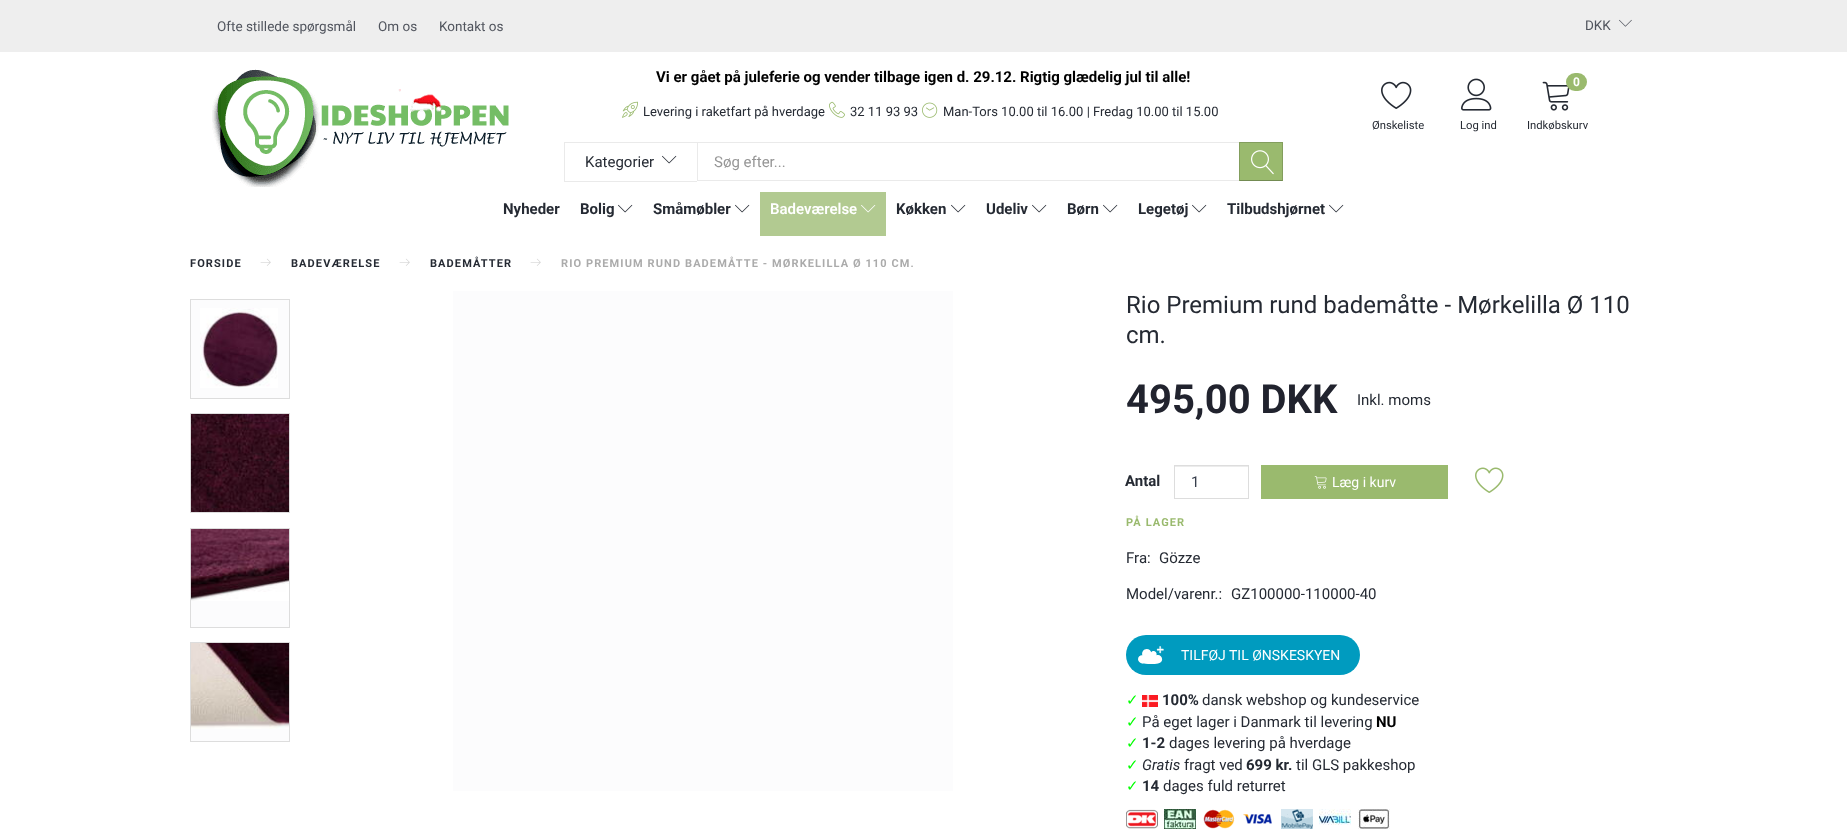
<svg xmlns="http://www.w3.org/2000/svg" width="1847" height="832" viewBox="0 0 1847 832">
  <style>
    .t1 { font: 13.5px Roboto; fill: #50545d; }
    .t2 { font: bold 15px Roboto; fill: #000; }
    .t3 { font: 13px Roboto; fill: #252a33; }
    .t4 { font: 15px Roboto; fill: #252a33; }
    .t5 { font: 15px Roboto; fill: #969696; }
    .t6 { font: 11.25px Roboto; fill: #252a33; }
    .t7 { font: bold 12px Roboto; fill: #fff; }
    .t8 { font: bold 15px Roboto; fill: #252a33; }
    .t9 { font: 600 15px Roboto; fill: #fff; }
    .t10 { font: bold 11px Roboto; letter-spacing: 1.1px; fill: #252a33; }
    .t11 { font: bold 11px Roboto; letter-spacing: 1.1px; fill: #ababab; }
    .t12 { font: 24px Roboto; fill: #252a33; }
    .t13 { font: bold 40px Roboto; fill: #21232e; }
    .t14 { font: 15px Roboto; fill: #373e4c; }
    .t15 { font: 14px Roboto; fill: #fff; }
    .t16 { font: bold 11px Roboto; letter-spacing: 1.1px; fill: #9aba6e; }
    .t17 { font: 15px DejaVu Sans; fill: #0f0; }
    .t18 { font: italic 15px Roboto; fill: #252a33; }
  </style>
  <rect width="100%" height="100%" fill="#fff"/>
  <rect x="0" y="0" width="1847" height="52" fill="#eee"/>
  <text x="217" y="31" class="t1">Ofte stillede spørgsmål</text>
  <text x="378" y="31" class="t1">Om os</text>
  <text x="439" y="31" class="t1">Kontakt os</text>
  <text x="1585" y="30" class="t1">DKK</text>
  <image x="1619" y="19" width="13" height="8" href="images/1.png"/>
  <image x="212" y="69" width="297" height="118" href="images/2.png"/>
  <text x="656" y="82" class="t2">Vi er gået på juleferie og vender tilbage igen d. 29.12. Rigtig glædelig jul til alle!</text>
  <image x="622" y="101" width="16" height="17" href="images/3.png"/>
  <text x="643" y="116" class="t3">Levering i raketfart på hverdage</text>
  <image x="829" y="101" width="16" height="17" href="images/4.png"/>
  <text x="850" y="116" class="t3">32 11 93 93</text>
  <image x="922" y="102" width="16" height="16" href="images/5.png"/>
  <text x="943" y="116" class="t3">Man-Tors 10.00 til 16.00 | Fredag 10.00 til 15.00</text>
  <rect x="564" y="142" width="133" height="1" fill="#eaeaea"/>
  <rect x="564" y="181" width="133" height="1" fill="#eaeaea"/>
  <rect x="564" y="142" width="1" height="40" fill="#eaeaea"/>
  <text x="585" y="167" class="t4">Kategorier</text>
  <image x="662" y="155" width="15" height="9" href="images/6.png"/>
  <rect x="697.5" y="142.5" width="542" height="38" fill="none" stroke="#eaeaea"/>
  <text x="714" y="167" class="t5">Søg efter...</text>
  <rect x="1239" y="142" width="44" height="39" fill="#9aba6e"/>
  <path d="M1239 142H1283L1282 143H1240Z" fill="#839e5e"/>
  <path d="M1283 142V181L1282 180V143Z" fill="#00000026"/>
  <path d="M1283 181H1239L1240 180H1282Z" fill="#00000040"/>
  <path d="M1239 181V142L1240 143V180Z" fill="#00000026"/>
  <image x="1251" y="150" width="23" height="25" href="images/7.png"/>
  <image x="1381" y="81" width="31" height="28" href="images/8.png"/>
  <text x="1372" y="129" class="t6">Ønskeliste</text>
  <image x="1461" y="78" width="31" height="33" href="images/9.png"/>
  <text x="1460" y="129" class="t6">Log ind</text>
  <image x="1542" y="81" width="28" height="30" href="images/10.png"/>
  <rect x="1566" y="73" width="21" height="18" rx="9" fill="#9aba6e"/>
  <text x="1573" y="86" class="t7">0</text>
  <text x="1527" y="129" class="t6">Indkøbskurv</text>
  <text x="503" y="214" class="t8">Nyheder</text>
  <text x="580" y="214" class="t8">Bolig</text>
  <image x="618" y="204" width="15" height="9" href="images/6.png"/>
  <text x="653" y="214" class="t8">Småmøbler</text>
  <image x="735" y="204" width="15" height="9" href="images/6.png"/>
  <rect x="760" y="192" width="126" height="44" fill="#b2ca91"/>
  <text x="770" y="214" class="t9">Badeværelse</text>
  <image x="861" y="205" width="15" height="8" href="images/11.png"/>
  <text x="896" y="214" class="t8">Køkken</text>
  <image x="951" y="204" width="15" height="9" href="images/6.png"/>
  <text x="986" y="214" class="t8">Udeliv</text>
  <image x="1032" y="204" width="15" height="9" href="images/6.png"/>
  <text x="1067" y="214" class="t8">Børn</text>
  <image x="1103" y="204" width="15" height="9" href="images/6.png"/>
  <text x="1138" y="214" class="t8">Legetøj</text>
  <image x="1192" y="204" width="15" height="9" href="images/6.png"/>
  <text x="1227" y="214" class="t8">Tilbudshjørnet</text>
  <image x="1329" y="204" width="15" height="9" href="images/6.png"/>
  <text x="190" y="267" class="t10">FORSIDE</text>
  <image x="260" y="258" width="11" height="8" href="images/12.png"/>
  <text x="291" y="267" class="t10">BADEVÆRELSE</text>
  <image x="399" y="258" width="11" height="8" href="images/12.png"/>
  <text x="430" y="267" class="t10">BADEMÅTTER</text>
  <image x="530" y="258" width="11" height="8" href="images/12.png"/>
  <text x="561" y="267" class="t11">RIO PREMIUM RUND BADEMÅTTE - MØRKELILLA Ø 110 CM.</text>
  <rect x="190.5" y="299.5" width="99" height="99" fill="#fcfcfd" stroke="#ddd"/>
  <image x="200" y="308" width="78" height="80" href="images/13.png"/>
  <rect x="190.5" y="413.5" width="99" height="99" fill="none" stroke="#ddd"/>
  <image x="191" y="414" width="98" height="98" href="images/14.png"/>
  <rect x="191" y="601" width="98" height="26" fill="#fcfcfd"/>
  <rect x="190.5" y="528.5" width="99" height="99" fill="none" stroke="#ddd"/>
  <image x="191" y="529" width="98" height="72" href="images/15.png"/>
  <rect x="191" y="729" width="98" height="12" fill="#fcfcfd"/>
  <rect x="190.5" y="642.5" width="99" height="99" fill="none" stroke="#ddd"/>
  <image x="191" y="643" width="98" height="86" href="images/16.png"/>
  <rect x="453" y="291" width="500" height="500" fill="#fcfcfd"/>
  <text x="1126" y="313" class="t12">Rio Premium rund bademåtte - Mørkelilla Ø 110</text>
  <text x="1126" y="343" class="t12">cm.</text>
  <text x="1126" y="413" class="t13">495,00 DKK</text>
  <text x="1357" y="405" class="t4">Inkl. moms</text>
  <text x="1125" y="486" class="t8">Antal</text>
  <rect x="1175" y="466" width="73" height="1" fill="#ececec"/>
  <rect x="1174.5" y="465.5" width="74" height="33" fill="none" stroke="#ddd"/>
  <text x="1191" y="487" class="t14">1</text>
  <rect x="1261" y="465" width="187" height="34" fill="#9aba6e"/>
  <image x="1314" y="476" width="13" height="13" href="images/17.png"/>
  <text x="1332" y="487" class="t15">Læg i kurv</text>
  <image x="1475" y="467" width="29" height="26" href="images/18.png"/>
  <text x="1126" y="526" class="t16">PÅ LAGER</text>
  <text x="1126" y="563" class="t4">Fra:</text>
  <text x="1159" y="563" class="t4">Gözze</text>
  <text x="1126" y="599" class="t4">Model/varenr.:</text>
  <text x="1231" y="599" class="t4">GZ100000-110000-40</text>
  <rect x="1126" y="635" width="234" height="40" rx="20" fill="#009bbf"/>
  <image x="1138" y="646" width="26" height="18" href="images/19.png"/>
  <text x="1181" y="660" class="t15">TILFØJ TIL ØNSKESKYEN</text>
  <text x="1126" y="705" class="t17">✓</text>
  <image x="1142" y="695" width="16" height="12" href="images/20.png"/>
  <text x="1162" y="705" class="t8">100%</text>
  <text x="1202" y="705" class="t4">dansk webshop og kundeservice</text>
  <text x="1126" y="727" class="t17">✓</text>
  <text x="1142" y="727" class="t4">På eget lager i Danmark til levering</text>
  <text x="1376" y="727" class="t2">NU</text>
  <text x="1126" y="748" class="t17">✓</text>
  <text x="1142" y="748" class="t8">1-2</text>
  <text x="1169" y="748" class="t4">dages levering på hverdage</text>
  <text x="1126" y="770" class="t17">✓</text>
  <text x="1142" y="770" class="t18">Gratis</text>
  <text x="1184" y="770" class="t4">fragt ved</text>
  <text x="1246" y="770" class="t8">699 kr.</text>
  <text x="1296" y="770" class="t4">til GLS pakkeshop</text>
  <text x="1126" y="791" class="t17">✓</text>
  <text x="1142" y="791" class="t8">14</text>
  <text x="1163" y="791" class="t4">dages fuld returret</text>
  <image x="1126" y="809" width="32" height="20" href="images/21.png"/>
  <image x="1164" y="809" width="32" height="20" href="images/22.png"/>
  <image x="1203" y="809" width="32" height="20" href="images/23.png"/>
  <image x="1243" y="813" width="29" height="11" href="images/24.png"/>
  <image x="1281" y="809" width="32" height="20" href="images/25.png"/>
  <image x="1319" y="809" width="32" height="16" href="images/26.png"/>
  <image x="1358" y="809" width="32" height="20" href="images/27.png"/>
</svg>
